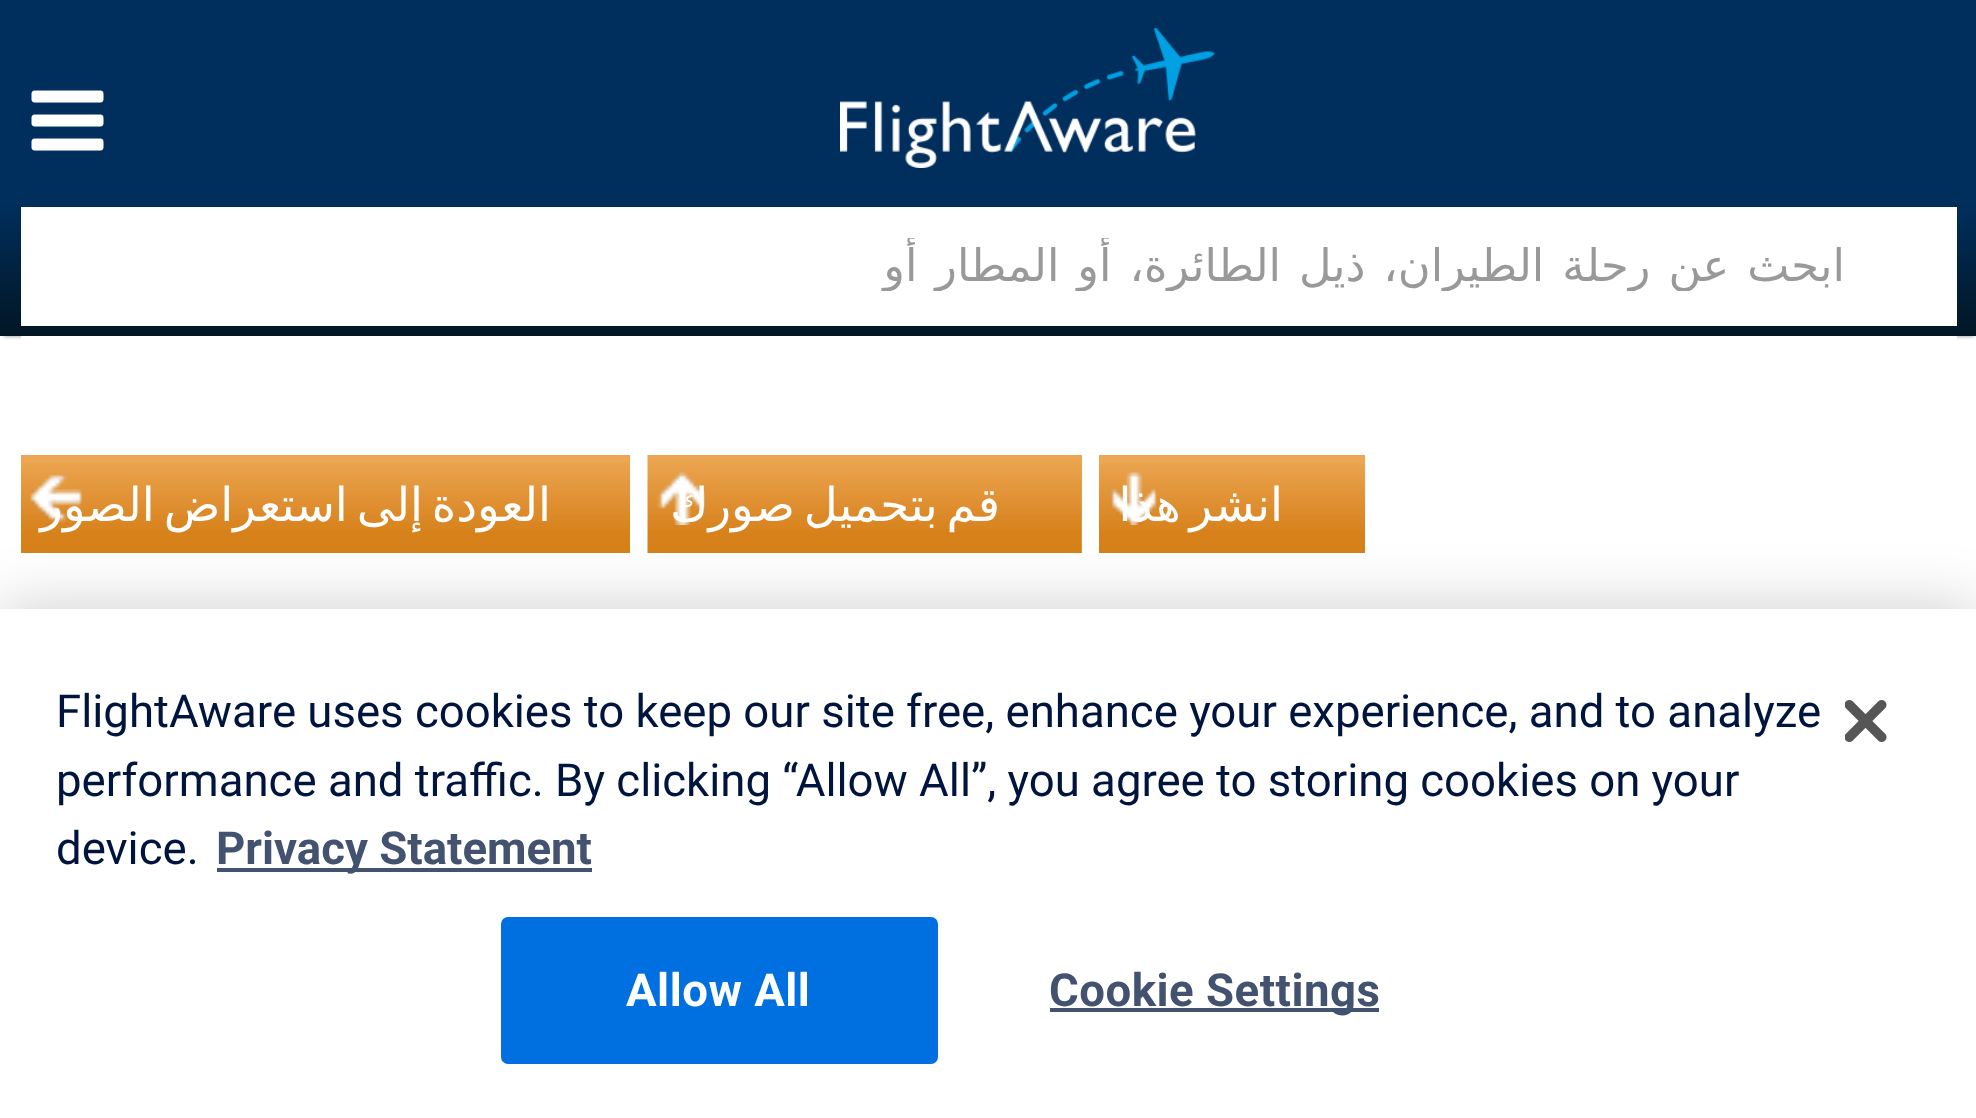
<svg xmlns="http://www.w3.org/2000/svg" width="1976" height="1118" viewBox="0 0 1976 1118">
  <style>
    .t1 { font: 44.8px DejaVu Sans; direction: rtl; fill: #999; }
    .t2 { font: 46.75px DejaVu Sans; direction: rtl; fill: #fff; }
    .t3 { font: 45.55px Roboto; fill: #00153d; }
    .t4 { font: bold 45.55px Roboto; fill: #42526f; }
    .t5 { font: bold 45.55px Roboto; letter-spacing: 0.5px; fill: #fff; }
    .t6 { font: bold 45.55px Roboto; letter-spacing: 0.5px; fill: #42526f; }
  </style>
  <defs>
    <linearGradient id="g1" gradientUnits="userSpaceOnUse" x1="989" y1="0" x2="989" y2="336"><stop offset="0" stop-color="#002f5d"/><stop offset="0.6" stop-color="#002f5d"/><stop offset="1" stop-color="#021624"/></linearGradient>
    <clipPath id="clip1"><rect x="21" y="238" width="1922" height="53"/></clipPath>
  </defs>
  <rect width="100%" height="100%" fill="#fff"/>
  <rect x="4" y="7" width="1970" height="329" fill="#888" filter="blur(2px)"/>
  <rect x="0" y="0" width="1976" height="336" fill="url(#g1)"/>
  <image x="31" y="90" width="73" height="61" href="images/1.png"/>
  <image x="840" y="28" width="375" height="140" href="images/2.png"/>
  <rect x="21" y="207" width="1936" height="119" fill="#fff"/>
  <g clip-path="url(#clip1)">
    <text x="1899" y="281" word-spacing="3.75" class="t1" xml:space="preserve">   ابحث عن رحلة الطيران، ذيل الطائرة، أو المطار أو</text>
  </g>
  <rect x="21" y="336" width="1936" height="4" fill="#fff"/>
  <rect x="21" y="455" width="609" height="8" fill="#eda653"/>
  <image x="21" y="463" width="609" height="90" href="images/3.png"/>
  <image x="30" y="474" width="52" height="49" href="images/4.png"/>
  <text x="551" y="521" word-spacing="-6" class="t2">العودة إلى استعراض الصور</text>
  <rect x="1081" y="455" width="1" height="98" fill="#eda653"/>
  <image x="647" y="455" width="435" height="98" href="images/5.png"/>
  <image x="657" y="472" width="48" height="53" href="images/6.png"/>
  <text x="1000" y="521" word-spacing="-6" class="t2">قم بتحميل صورك</text>
  <rect x="1099" y="455" width="266" height="8" fill="#eda653"/>
  <image x="1099" y="463" width="266" height="90" href="images/7.png"/>
  <image x="1108" y="472" width="49" height="53" href="images/8.png"/>
  <text x="1283" y="521" word-spacing="-6" class="t2">انشر هذا</text>
  <rect x="0" y="609" width="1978" height="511" fill="#00000033" filter="blur(31.5px)"/>
  <rect x="0" y="609" width="1976" height="509" fill="#fff"/>
  <text x="56" y="727" class="t3">FlightAware uses cookies to keep our site free, enhance your experience, and to analyze</text>
  <text x="56" y="796" class="t3">performance and traffic. By clicking “Allow All”, you agree to storing cookies on your</text>
  <text x="56" y="864" class="t3">device.</text>
  <rect x="217" y="868" width="375" height="4" fill="#42526f"/>
  <text x="216" y="864" class="t4">Privacy Statement</text>
  <rect x="503" y="919" width="433" height="143" rx="5" fill="#0070e0" stroke="#0070e0" stroke-width="4"/>
  <text x="626" y="1006" class="t5">Allow All</text>
  <rect x="1050" y="1008" width="329" height="4" fill="#42526f"/>
  <text x="1049" y="1006" class="t6">Cookie Settings</text>
  <image x="1845" y="700" width="42" height="42" href="images/9.png"/>
</svg>
